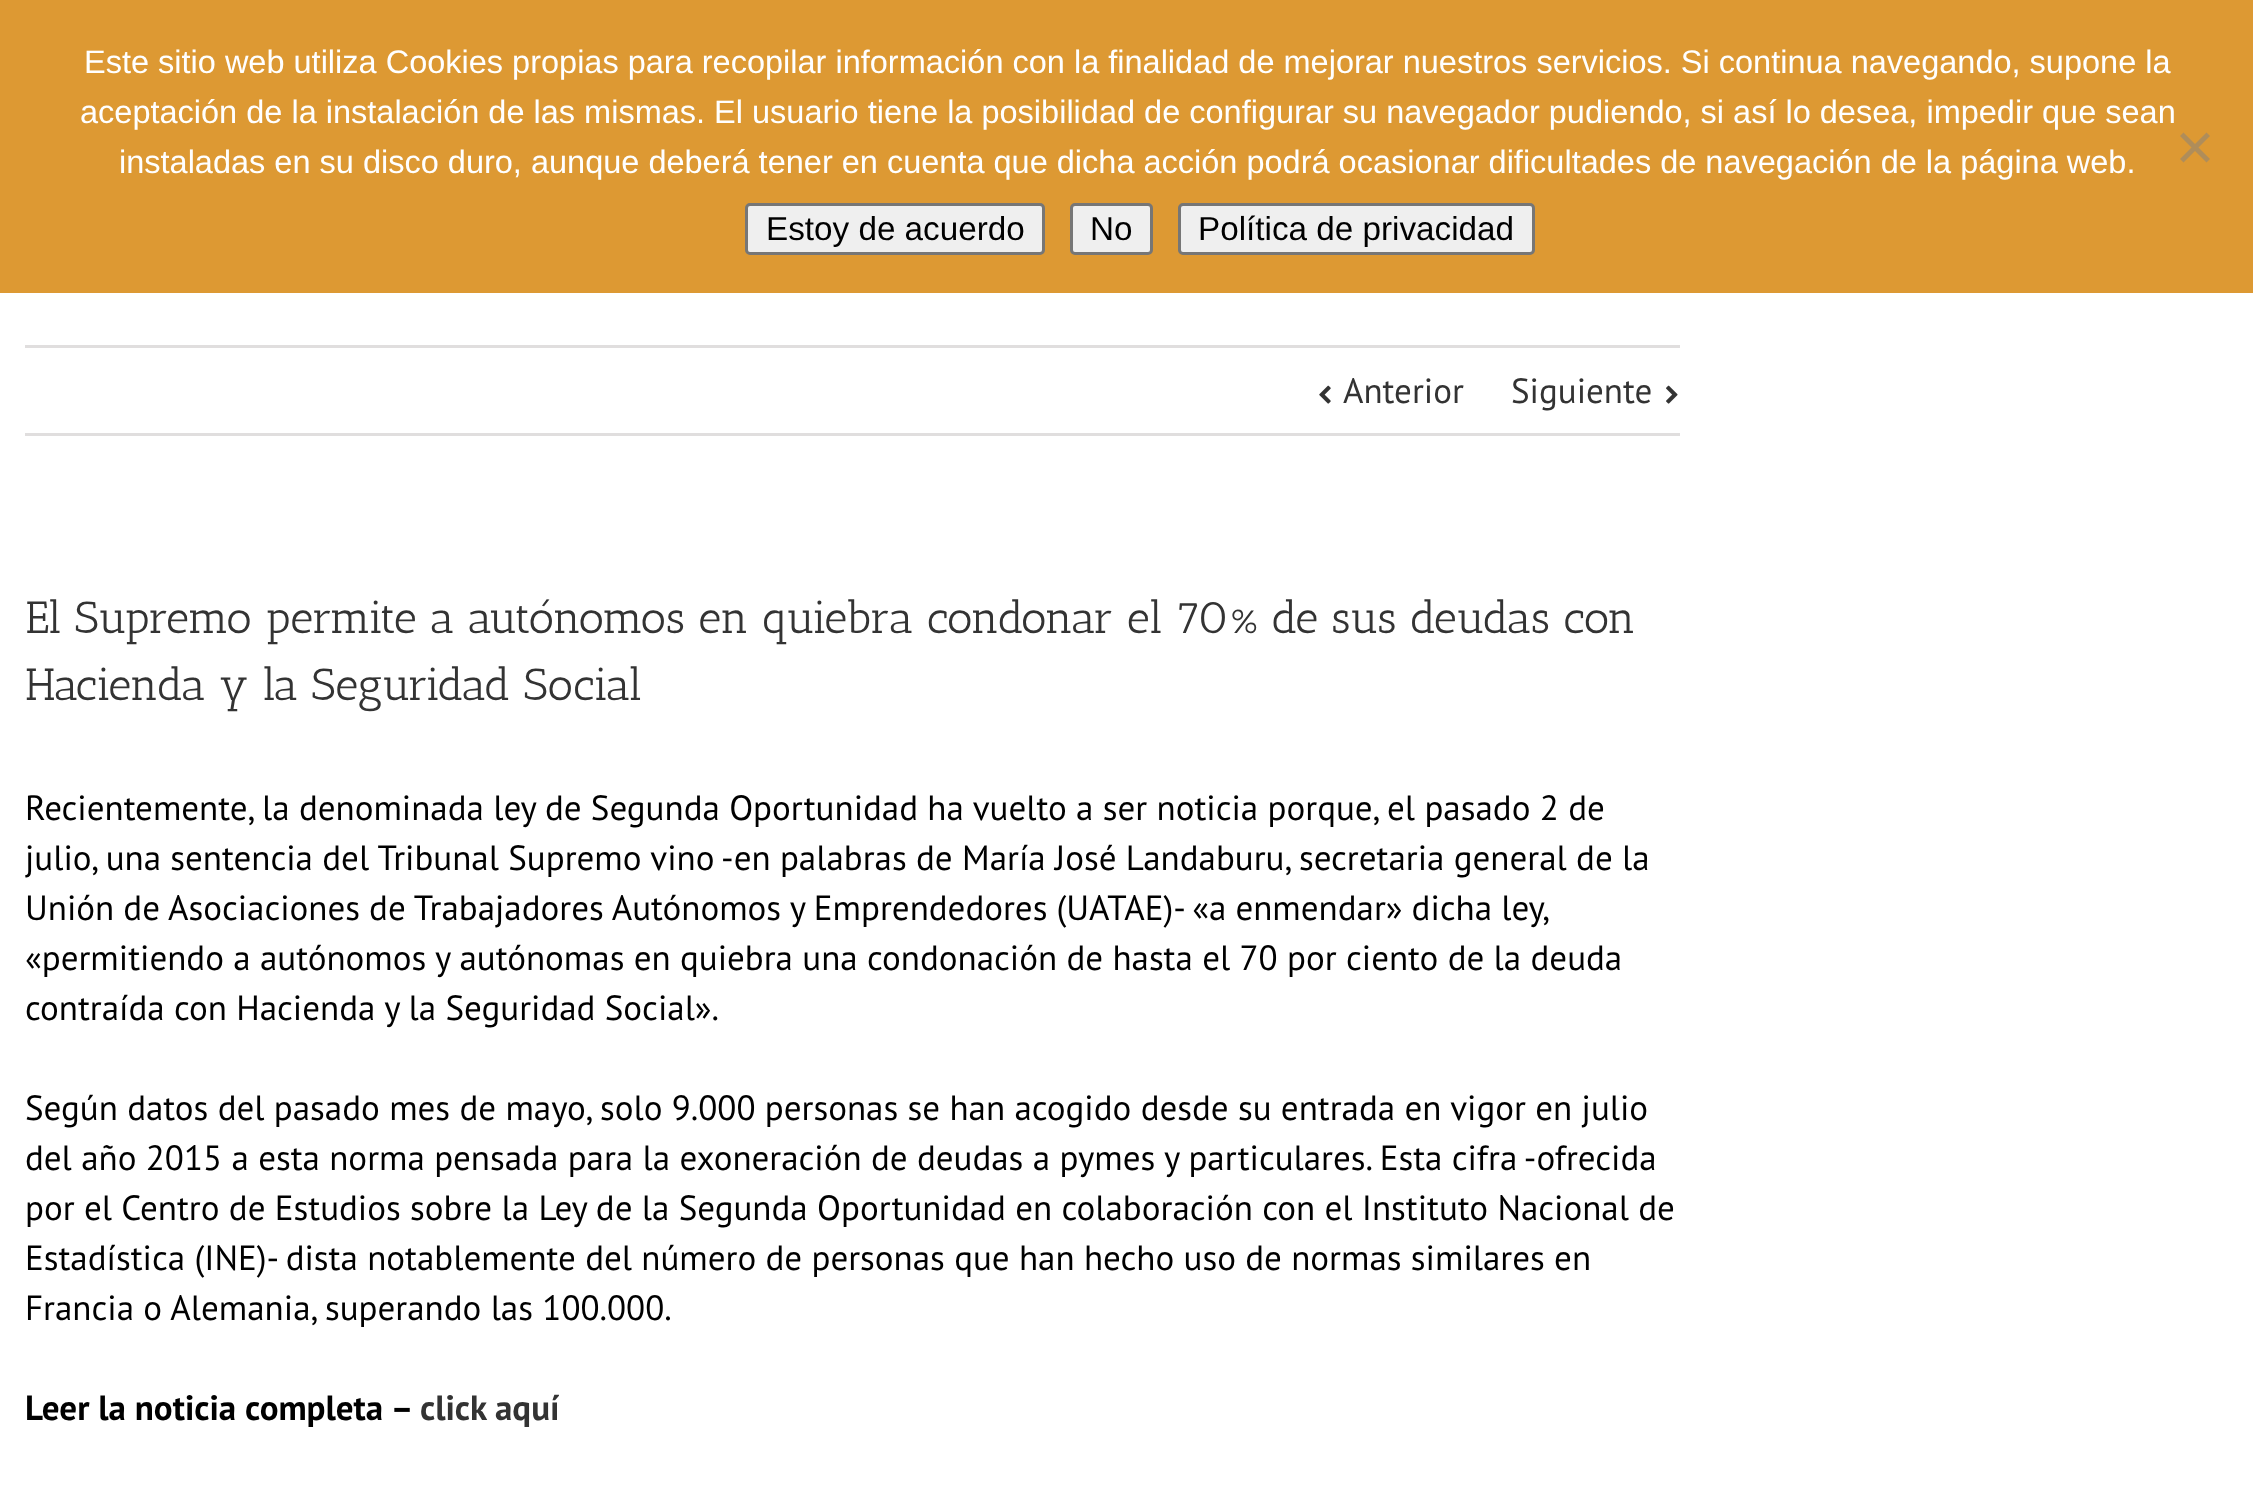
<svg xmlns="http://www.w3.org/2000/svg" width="2253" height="1486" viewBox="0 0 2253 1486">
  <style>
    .t1 { font: 32.5px Liberation Sans; fill: #fff; }
    .t2 { font: 33.25px Liberation Sans; fill: #000; }
    .t3 { font: 35px PT Sans; fill: #333; }
    .t4 { font: 45px Antic Slab; fill: #333; }
    .t5 { font: 35px PT Sans; fill: #000; }
    .t6 { font: bold 35px PT Sans; fill: #000; }
    .t7 { font: bold 35px PT Sans; fill: #333; }
  </style>
  <rect width="100%" height="100%" fill="#fff"/>
  <rect x="0" y="0" width="2253" height="293" fill="#d93"/>
  <text x="84" y="73" class="t1">Este sitio web utiliza Cookies propias para recopilar información con la finalidad de mejorar nuestros servicios. Si continua navegando, supone la</text>
  <text x="80" y="123" class="t1">aceptación de la instalación de las mismas. El usuario tiene la posibilidad de configurar su navegador pudiendo, si así lo desea, impedir que sean</text>
  <text x="119" y="173" class="t1">instaladas en su disco duro, aunque deberá tener en cuenta que dicha acción podrá ocasionar dificultades de navegación de la página web.</text>
  <path d="M2206.5 132.5L2210 136L2183.5 162.5L2180 159Z" fill="#af8d5a"/>
  <path d="M2180 136L2183.5 132.5L2210 159L2206.5 162.5Z" fill="#af8d5a"/>
  <rect x="746.5" y="204.5" width="297" height="49" rx="3.5" fill="#efefef" stroke="#767676" stroke-width="3"/>
  <text x="766" y="240" class="t2">Estoy de acuerdo</text>
  <rect x="1071.5" y="204.5" width="80" height="49" rx="3.5" fill="#efefef" stroke="#767676" stroke-width="3"/>
  <text x="1090" y="240" class="t2">No</text>
  <rect x="1179.5" y="204.5" width="354" height="49" rx="3.5" fill="#efefef" stroke="#767676" stroke-width="3"/>
  <text x="1198" y="240" class="t2">Política de privacidad</text>
  <rect x="25" y="345" width="1655" height="3" fill="#e0dede"/>
  <rect x="25" y="433" width="1655" height="3" fill="#e0dede"/>
  <image x="1319" y="385" width="12" height="19" href="images/1.png"/>
  <text x="1343" y="403" class="t3">Anterior</text>
  <text x="1511" y="403" class="t3">Siguiente</text>
  <image x="1666" y="385" width="12" height="19" href="images/2.png"/>
  <text x="25" y="633" class="t4">El Supremo permite a autónomos en quiebra condonar el 70% de sus deudas con</text>
  <text x="25" y="700" class="t4">Hacienda y la Seguridad Social</text>
  <text x="25" y="820" class="t5">Recientemente, la denominada ley de Segunda Oportunidad ha vuelto a ser noticia porque, el pasado 2 de</text>
  <text x="25" y="870" class="t5">julio, una sentencia del Tribunal Supremo vino -en palabras de María José Landaburu, secretaria general de la</text>
  <text x="25" y="920" word-spacing="-0.25" class="t5">Unión de Asociaciones de Trabajadores Autónomos y Emprendedores (UATAE)- «a enmendar» dicha ley,</text>
  <text x="25" y="970" class="t5">«permitiendo a autónomos y autónomas en quiebra una condonación de hasta el 70 por ciento de la deuda</text>
  <text x="25" y="1020" class="t5">contraída con Hacienda y la Seguridad Social».</text>
  <text x="25" y="1120" class="t5">Según datos del pasado mes de mayo, solo 9.000 personas se han acogido desde su entrada en vigor en julio</text>
  <text x="25" y="1170" class="t5">del año 2015 a esta norma pensada para la exoneración de deudas a pymes y particulares. Esta cifra -ofrecida</text>
  <text x="25" y="1220" class="t5">por el Centro de Estudios sobre la Ley de la Segunda Oportunidad en colaboración con el Instituto Nacional de</text>
  <text x="25" y="1270" class="t5">Estadística (INE)- dista notablemente del número de personas que han hecho uso de normas similares en</text>
  <text x="25" y="1320" class="t5">Francia o Alemania, superando las 100.000.</text>
  <text x="25" y="1420" class="t6">Leer la noticia completa –</text>
  <text x="420" y="1420" class="t7">click aquí</text>
</svg>
